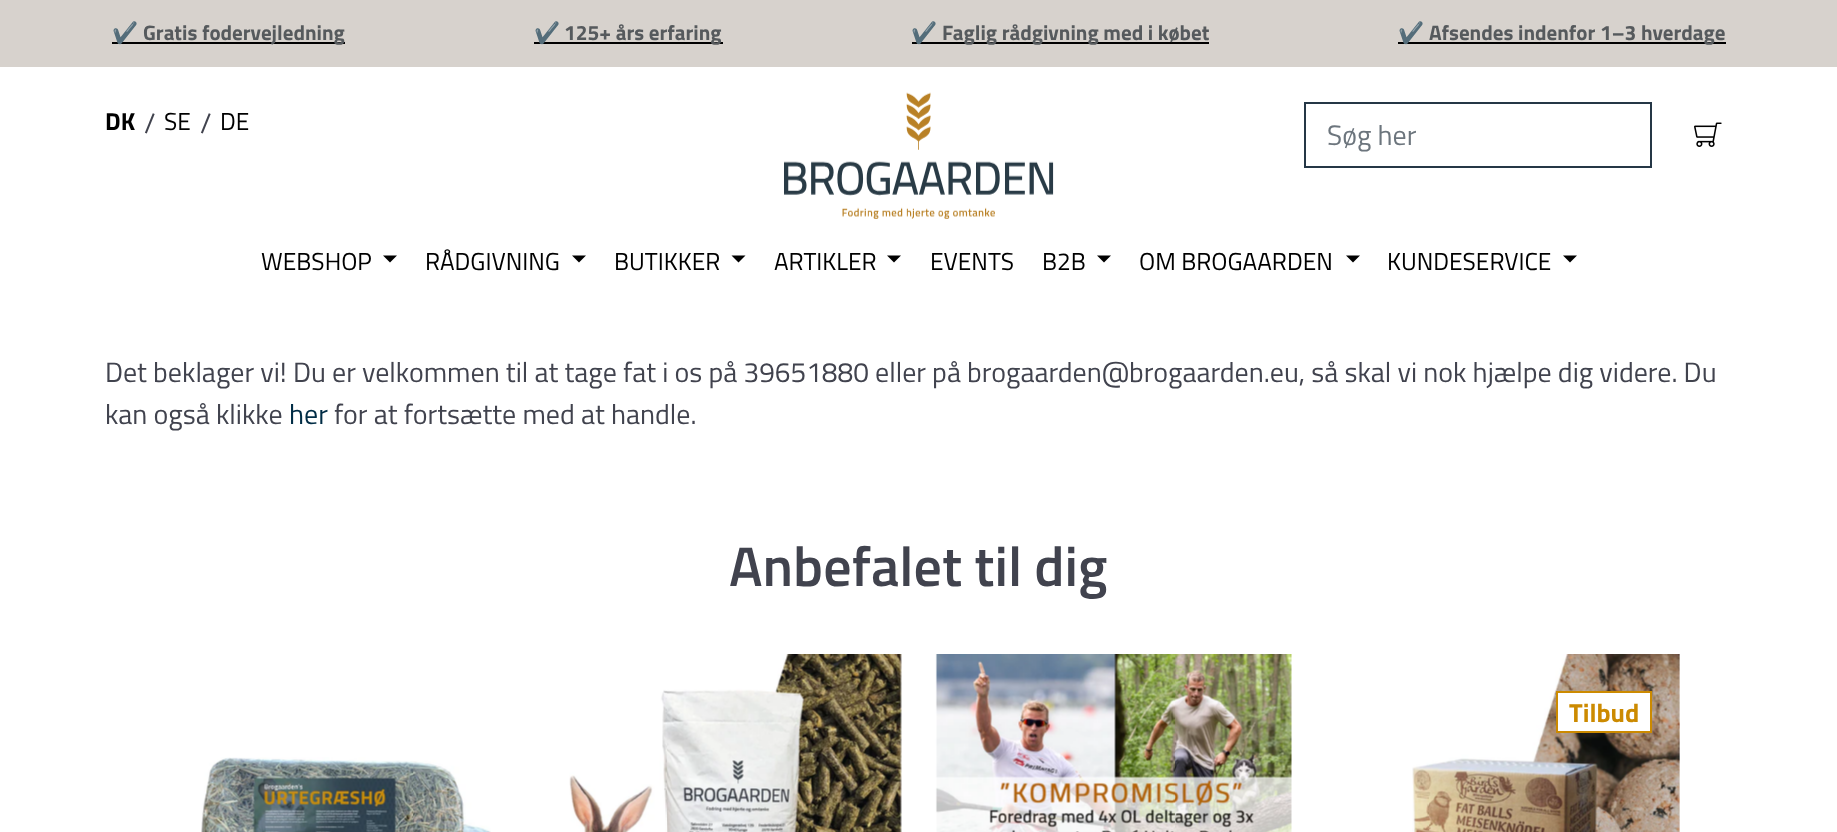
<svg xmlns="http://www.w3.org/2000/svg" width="1837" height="832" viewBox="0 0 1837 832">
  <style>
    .t1 { font: bold 21px Noto Color Emoji; fill: #565a5d; }
    .t2 { font: bold 21px Titillium Web; fill: #565a5d; }
    .t3 { font: bold 24.5px Titillium Web; fill: #000; }
    .t4 { font: 28px Titillium Web; fill: #41434e; }
    .t5 { font: 24.5px Titillium Web; fill: #000; }
    .t6 { font: 28px Titillium Web; fill: #6c757d; }
    .t7 { font: 28px Titillium Web; fill: #002c45; }
    .t8 { font: 600 56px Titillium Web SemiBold; fill: #41434e; }
    .t9 { font: bold 26px Titillium Web; fill: #cc8a00; }
  </style>
  <rect width="100%" height="100%" fill="#fff"/>
  <rect x="0" y="0" width="1837" height="67" fill="#d7d2cd"/>
  <rect x="112" y="42" width="233" height="2" fill="#000"/>
  <text x="112" y="40" class="t1">✔️</text>
  <text x="143" y="40" class="t2">Gratis fodervejledning</text>
  <rect x="534" y="42" width="189" height="2" fill="#000"/>
  <text x="534" y="40" class="t1">✔️</text>
  <text x="564" y="40" class="t2">125+ års erfaring</text>
  <rect x="912" y="42" width="297" height="2" fill="#000"/>
  <text x="911" y="40" class="t1">✔️</text>
  <text x="942" y="40" class="t2">Faglig rådgivning med i købet</text>
  <rect x="1398" y="42" width="328" height="2" fill="#000"/>
  <text x="1398" y="40" class="t1">✔️</text>
  <text x="1429" y="40" class="t2">Afsendes indenfor 1–3 hverdage</text>
  <text x="105" y="130" class="t3">DK</text>
  <text x="144" y="133" class="t4">/</text>
  <text x="164" y="130" class="t5">SE</text>
  <text x="200" y="133" class="t4">/</text>
  <text x="220" y="130" class="t5">DE</text>
  <image x="784" y="92" width="270" height="127" href="images/1.png"/>
  <rect x="1305" y="103" width="346" height="64" fill="none" stroke="#253746" stroke-width="2"/>
  <text x="1327" y="145" class="t6">Søg her</text>
  <image x="1694" y="122" width="28" height="25" href="images/2.png"/>
  <text x="261" y="270" class="t5">WEBSHOP</text>
  <path d="M383 255.5H397L390 262.5Z" fill="#000"/>
  <text x="425" y="270" class="t5">RÅDGIVNING</text>
  <path d="M572 255.5H586L579 262.5Z" fill="#000"/>
  <text x="614" y="270" class="t5">BUTIKKER</text>
  <path d="M731.5 255.5H745.5L738.5 262.5Z" fill="#000"/>
  <text x="774" y="270" class="t5">ARTIKLER</text>
  <path d="M887 255.5H901L894 262.5Z" fill="#000"/>
  <text x="930" y="270" class="t5">EVENTS</text>
  <text x="1042" y="270" class="t5">B2B</text>
  <path d="M1097 255.5H1111L1104 262.5Z" fill="#000"/>
  <text x="1139" y="270" class="t5">OM BROGAARDEN</text>
  <path d="M1346 255.5H1360L1353 262.5Z" fill="#000"/>
  <text x="1387" y="270" class="t5">KUNDESERVICE</text>
  <path d="M1563 255.5H1577L1570 262.5Z" fill="#000"/>
  <text x="105" y="382" class="t4">Det beklager vi! Du er velkommen til at tage fat i os på 39651880 eller på brogaarden@brogaarden.eu, så skal vi nok hjælpe dig videre. Du</text>
  <text x="105" y="424" class="t4">kan også klikke</text>
  <text x="289" y="424" class="t7">her</text>
  <text x="334" y="424" class="t4">for at fortsætte med at handle.</text>
  <text x="729" y="586" class="t8">Anbefalet til dig</text>
  <image x="569" y="654" width="333" height="178" href="images/3.png"/>
  <image x="935" y="654" width="357" height="178" href="images/4.png"/>
  <image x="1412" y="654" width="268" height="178" href="images/5.png"/>
  <rect x="1557" y="692" width="94" height="40" fill="#fff" stroke="#cc8a00" stroke-width="2"/>
  <text x="1569" y="722" class="t9">Tilbud</text>
  <image x="201" y="757" width="290" height="75" href="images/6.png"/>
</svg>
